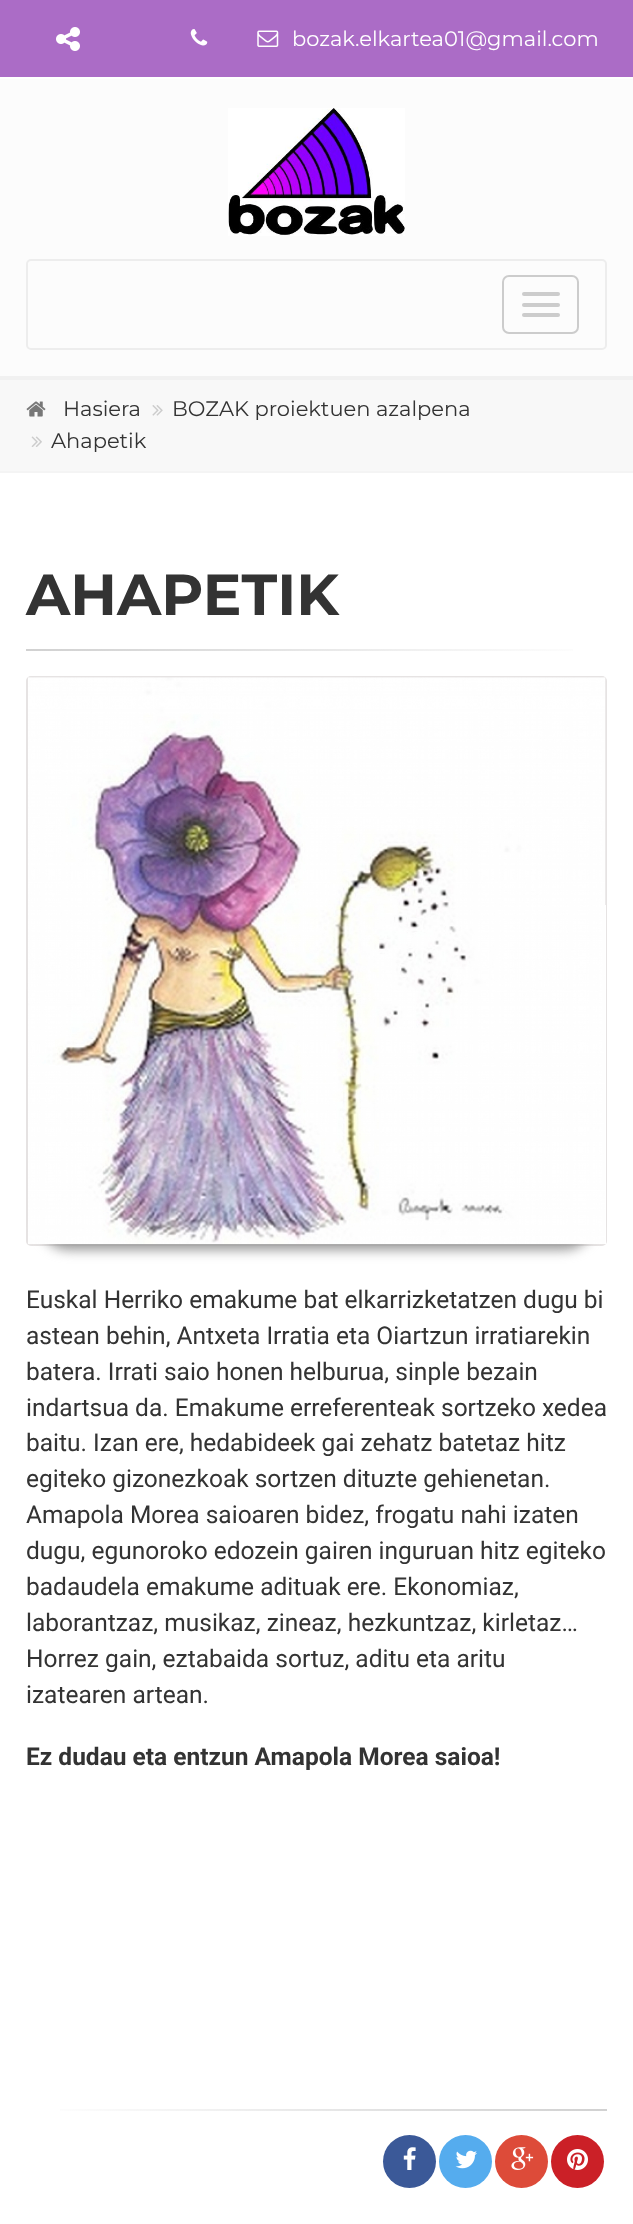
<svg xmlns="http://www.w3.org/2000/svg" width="633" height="2224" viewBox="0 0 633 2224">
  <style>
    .t1 { font: 21px Montserrat; fill: #fff; }
    .t2 { font: 21px Montserrat; fill: #333; }
    .t3 { font: bold 57.75px Montserrat; fill: #333; }
    .t4 { font: 24.5px Roboto; fill: #333; }
    .t5 { font: bold 24.5px Roboto; fill: #333; }
  </style>
  <defs>
    <linearGradient id="g1" gradientUnits="userSpaceOnUse" x1="26" y1="650" x2="607" y2="650"><stop offset="0" stop-color="#d1d1d1"/><stop offset="0.35" stop-color="#e0e0e0"/><stop offset="0.7" stop-color="#f2f2f2"/><stop offset="1" stop-color="#fff"/></linearGradient>
    <linearGradient id="g2" gradientUnits="userSpaceOnUse" x1="607" y1="2110" x2="26" y2="2110"><stop offset="0" stop-color="#d1d1d1"/><stop offset="0.35" stop-color="#e0e0e0"/><stop offset="0.7" stop-color="#f2f2f2"/><stop offset="1" stop-color="#fff"/></linearGradient>
  </defs>
  <rect width="100%" height="100%" fill="#fff"/>
  <rect x="0" y="0" width="633" height="77" fill="#ab6cc6"/>
  <image x="56" y="27" width="24" height="24" href="images/1.png"/>
  <image x="190" y="29" width="18" height="17" href="images/2.png"/>
  <image x="257" y="30" width="22" height="17" href="images/3.png"/>
  <text x="292" y="46" class="t1">bozak.elkartea01@gmail.com</text>
  <rect x="0" y="79" width="633" height="297" fill="#fcfcfc"/>
  <rect x="0" y="376" width="633" height="4" fill="#f1f1f1"/>
  <image x="228" y="108" width="177" height="128" href="images/4.png"/>
  <rect x="27" y="260" width="579" height="89" rx="4" fill="none" stroke="#ededed" stroke-width="2"/>
  <rect x="503" y="276" width="75" height="57" rx="6" fill="none" stroke="#ccc" stroke-width="2"/>
  <rect x="522" y="292" width="38" height="4" rx="2" fill="#ccc"/>
  <rect x="522" y="303" width="38" height="4" rx="2" fill="#ccc"/>
  <rect x="522" y="313" width="38" height="4" rx="2" fill="#ccc"/>
  <rect x="0" y="380" width="633" height="91" fill="#f8f8f8"/>
  <rect x="0" y="471" width="633" height="2" fill="#f4f4f4"/>
  <image x="26" y="401" width="20" height="16" href="images/5.png"/>
  <text x="63" y="416" class="t2">Hasiera</text>
  <image x="152" y="405" width="11" height="11" href="images/6.png"/>
  <text x="172" y="416" class="t2">BOZAK proiektuen azalpena</text>
  <image x="31" y="436" width="11" height="11" href="images/7.png"/>
  <text x="51" y="448" class="t2">Ahapetik</text>
  <text x="26" y="615" class="t3">AHAPETIK</text>
  <rect x="26" y="649" width="547" height="2" fill="url(#g1)"/>
  <rect x="27" y="677" width="579" height="568" rx="4" fill="none" stroke="#e6e3e3" stroke-width="2"/>
  <rect x="40" y="966" width="553" height="284" rx="28" fill="#999" filter="blur(6px)"/>
  <rect x="605" y="905" width="1" height="339" fill="#fff"/>
  <image x="28" y="677" width="578" height="568" href="images/8.png"/>
  <text x="26" y="1308" class="t4">Euskal Herriko emakume bat elkarrizketatzen dugu bi</text>
  <text x="26" y="1344" class="t4">astean behin, Antxeta Irratia eta Oiartzun irratiarekin</text>
  <text x="26" y="1380" class="t4">batera. Irrati saio honen helburua, sinple bezain</text>
  <text x="26" y="1416" class="t4">indartsua da. Emakume erreferenteak sortzeko xedea</text>
  <text x="26" y="1451" class="t4">baitu. Izan ere, hedabideek gai zehatz batetaz hitz</text>
  <text x="26" y="1487" class="t4">egiteko gizonezkoak sortzen dituzte gehienetan.</text>
  <text x="26" y="1523" class="t4">Amapola Morea saioaren bidez, frogatu nahi izaten</text>
  <text x="26" y="1559" class="t4">dugu, egunoroko edozein gairen inguruan hitz egiteko</text>
  <text x="26" y="1595" class="t4">badaudela emakume adituak ere. Ekonomiaz,</text>
  <text x="26" y="1631" class="t4">laborantzaz, musikaz, zineaz, hezkuntzaz, kirletaz…</text>
  <text x="26" y="1667" class="t4">Horrez gain, eztabaida sortuz, aditu eta aritu</text>
  <text x="26" y="1703" class="t4">izatearen artean.</text>
  <text x="26" y="1765" class="t5">Ez dudau eta entzun Amapola Morea saioa!</text>
  <rect x="60" y="2109" width="547" height="2" fill="url(#g2)"/>
  <circle cx="409.5" cy="2161.5" r="26.5" fill="#3b5998"/>
  <image x="403" y="2147" width="13" height="23" href="images/9.png"/>
  <circle cx="465.5" cy="2161.5" r="26.5" fill="#55acee"/>
  <image x="455" y="2150" width="22" height="19" href="images/10.png"/>
  <circle cx="521.5" cy="2161.5" r="26.5" fill="#dd4b39"/>
  <image x="511" y="2147" width="23" height="23" href="images/11.png"/>
  <circle cx="577.5" cy="2161.5" r="26.5" fill="#cb2027"/>
  <image x="567" y="2149" width="21" height="21" href="images/12.png"/>
</svg>
